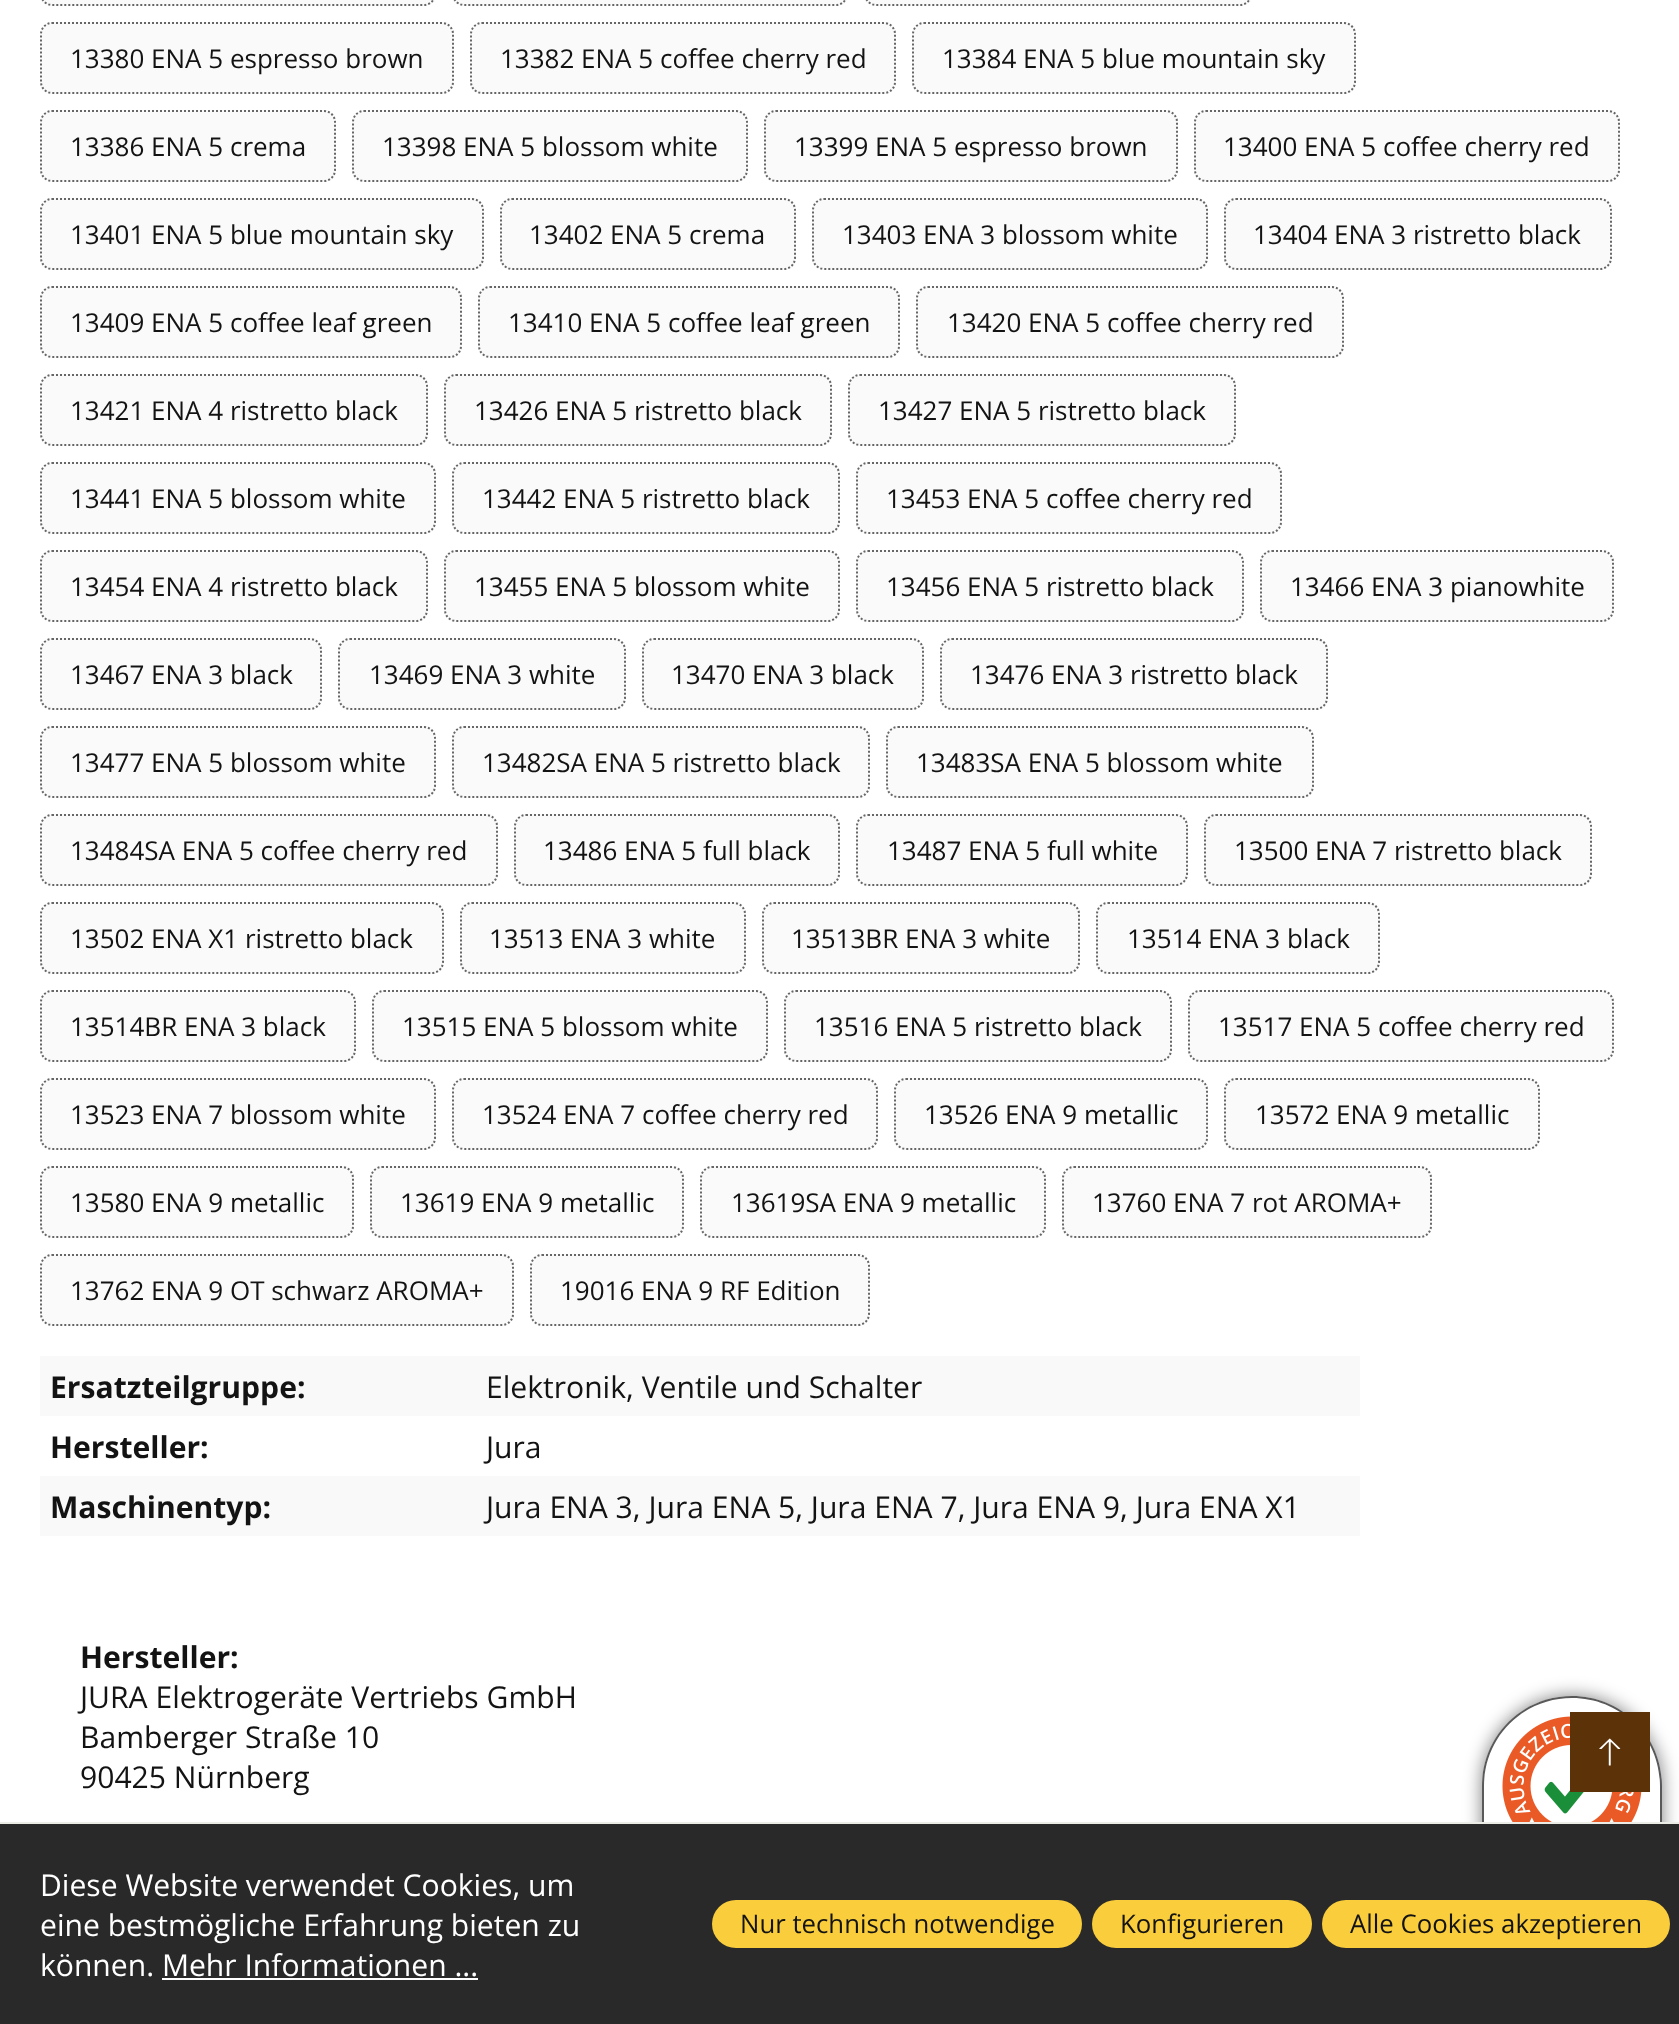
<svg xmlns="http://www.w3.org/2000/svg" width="1679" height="2024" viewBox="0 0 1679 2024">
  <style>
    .t1 { font: 26px Open Sans; fill: #131313; }
    .t2 { font: bold 30.1px Open Sans; fill: #131313; }
    .t3 { font: 30.1px Open Sans; fill: #131313; }
    .t4 { font: 30.1px Open Sans; fill: #fff; }
    .t5 { font: 25.75px Open Sans; fill: #131313; }
  </style>
  <defs>
    <clipPath id="clip1"><path d="M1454 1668H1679V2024H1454ZM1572 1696C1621.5 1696 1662 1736.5 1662 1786V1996C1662 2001.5 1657.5 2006 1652 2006H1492C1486.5 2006 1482 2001.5 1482 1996V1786C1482 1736.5 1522.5 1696 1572 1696Z" clip-rule="evenodd"/></clipPath>
  </defs>
  <rect width="100%" height="100%" fill="#fff"/>
  <rect x="40" y="-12" width="396" height="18" rx="12" fill="#fafafa"/>
  <path d="M52-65H424C430-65 435-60 435-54V-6C435 0 430 5 424 5H52C46 5 41 0 41-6V-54C41-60 46-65 52-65Z" fill="none" stroke="#666" stroke-width="2" stroke-dasharray="2 2"/>
  <rect x="452" y="-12" width="396" height="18" rx="12" fill="#fafafa"/>
  <path d="M464-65H836C842-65 847-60 847-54V-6C847 0 842 5 836 5H464C458 5 453 0 453-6V-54C453-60 458-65 464-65Z" fill="none" stroke="#666" stroke-width="2" stroke-dasharray="2 2"/>
  <rect x="864" y="-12" width="388" height="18" rx="12" fill="#fafafa"/>
  <path d="M876-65H1240C1246-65 1251-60 1251-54V-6C1251 0 1246 5 1240 5H876C870 5 865 0 865-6V-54C865-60 870-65 876-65Z" fill="none" stroke="#666" stroke-width="2" stroke-dasharray="2 2"/>
  <rect x="40" y="22" width="414" height="72" rx="12" fill="#fafafa"/>
  <path d="M52 23H442C448 23 453 28 453 34V82C453 88 448 93 442 93H52C46 93 41 88 41 82V34C41 28 46 23 52 23Z" fill="none" stroke="#666" stroke-width="2" stroke-dasharray="2 2"/>
  <text x="70" y="68" class="t1">13380 ENA 5 espresso brown</text>
  <rect x="470" y="22" width="426" height="72" rx="12" fill="#fafafa"/>
  <path d="M482 23H884C890 23 895 28 895 34V82C895 88 890 93 884 93H482C476 93 471 88 471 82V34C471 28 476 23 482 23Z" fill="none" stroke="#666" stroke-width="2" stroke-dasharray="2 2"/>
  <text x="500" y="68" class="t1">13382 ENA 5 coffee cherry red</text>
  <rect x="912" y="22" width="444" height="72" rx="12" fill="#fafafa"/>
  <path d="M924 23H1344C1350 23 1355 28 1355 34V82C1355 88 1350 93 1344 93H924C918 93 913 88 913 82V34C913 28 918 23 924 23Z" fill="none" stroke="#666" stroke-width="2" stroke-dasharray="2 2"/>
  <text x="942" y="68" class="t1">13384 ENA 5 blue mountain sky</text>
  <rect x="40" y="110" width="296" height="72" rx="12" fill="#fafafa"/>
  <path d="M52 111H324C330 111 335 116 335 122V170C335 176 330 181 324 181H52C46 181 41 176 41 170V122C41 116 46 111 52 111Z" fill="none" stroke="#666" stroke-width="2" stroke-dasharray="2 2"/>
  <text x="70" y="156" class="t1">13386 ENA 5 crema</text>
  <rect x="352" y="110" width="396" height="72" rx="12" fill="#fafafa"/>
  <path d="M364 111H736C742 111 747 116 747 122V170C747 176 742 181 736 181H364C358 181 353 176 353 170V122C353 116 358 111 364 111Z" fill="none" stroke="#666" stroke-width="2" stroke-dasharray="2 2"/>
  <text x="382" y="156" class="t1">13398 ENA 5 blossom white</text>
  <rect x="764" y="110" width="414" height="72" rx="12" fill="#fafafa"/>
  <path d="M776 111H1166C1172 111 1177 116 1177 122V170C1177 176 1172 181 1166 181H776C770 181 765 176 765 170V122C765 116 770 111 776 111Z" fill="none" stroke="#666" stroke-width="2" stroke-dasharray="2 2"/>
  <text x="794" y="156" class="t1">13399 ENA 5 espresso brown</text>
  <rect x="1194" y="110" width="426" height="72" rx="12" fill="#fafafa"/>
  <path d="M1206 111H1608C1614 111 1619 116 1619 122V170C1619 176 1614 181 1608 181H1206C1200 181 1195 176 1195 170V122C1195 116 1200 111 1206 111Z" fill="none" stroke="#666" stroke-width="2" stroke-dasharray="2 2"/>
  <text x="1223" y="156" class="t1">13400 ENA 5 coffee cherry red</text>
  <rect x="40" y="198" width="444" height="72" rx="12" fill="#fafafa"/>
  <path d="M52 199H472C478 199 483 204 483 210V258C483 264 478 269 472 269H52C46 269 41 264 41 258V210C41 204 46 199 52 199Z" fill="none" stroke="#666" stroke-width="2" stroke-dasharray="2 2"/>
  <text x="70" y="244" class="t1">13401 ENA 5 blue mountain sky</text>
  <rect x="500" y="198" width="296" height="72" rx="12" fill="#fafafa"/>
  <path d="M512 199H784C790 199 795 204 795 210V258C795 264 790 269 784 269H512C506 269 501 264 501 258V210C501 204 506 199 512 199Z" fill="none" stroke="#666" stroke-width="2" stroke-dasharray="2 2"/>
  <text x="529" y="244" class="t1">13402 ENA 5 crema</text>
  <rect x="812" y="198" width="396" height="72" rx="12" fill="#fafafa"/>
  <path d="M824 199H1196C1202 199 1207 204 1207 210V258C1207 264 1202 269 1196 269H824C818 269 813 264 813 258V210C813 204 818 199 824 199Z" fill="none" stroke="#666" stroke-width="2" stroke-dasharray="2 2"/>
  <text x="842" y="244" class="t1">13403 ENA 3 blossom white</text>
  <rect x="1224" y="198" width="388" height="72" rx="12" fill="#fafafa"/>
  <path d="M1236 199H1600C1606 199 1611 204 1611 210V258C1611 264 1606 269 1600 269H1236C1230 269 1225 264 1225 258V210C1225 204 1230 199 1236 199Z" fill="none" stroke="#666" stroke-width="2" stroke-dasharray="2 2"/>
  <text x="1253" y="244" class="t1">13404 ENA 3 ristretto black</text>
  <rect x="40" y="286" width="422" height="72" rx="12" fill="#fafafa"/>
  <path d="M52 287H450C456 287 461 292 461 298V346C461 352 456 357 450 357H52C46 357 41 352 41 346V298C41 292 46 287 52 287Z" fill="none" stroke="#666" stroke-width="2" stroke-dasharray="2 2"/>
  <text x="70" y="332" class="t1">13409 ENA 5 coffee leaf green</text>
  <rect x="478" y="286" width="422" height="72" rx="12" fill="#fafafa"/>
  <path d="M490 287H888C894 287 899 292 899 298V346C899 352 894 357 888 357H490C484 357 479 352 479 346V298C479 292 484 287 490 287Z" fill="none" stroke="#666" stroke-width="2" stroke-dasharray="2 2"/>
  <text x="508" y="332" class="t1">13410 ENA 5 coffee leaf green</text>
  <rect x="916" y="286" width="428" height="72" rx="12" fill="#fafafa"/>
  <path d="M928 287H1332C1338 287 1343 292 1343 298V346C1343 352 1338 357 1332 357H928C922 357 917 352 917 346V298C917 292 922 287 928 287Z" fill="none" stroke="#666" stroke-width="2" stroke-dasharray="2 2"/>
  <text x="947" y="332" class="t1">13420 ENA 5 coffee cherry red</text>
  <rect x="40" y="374" width="388" height="72" rx="12" fill="#fafafa"/>
  <path d="M52 375H416C422 375 427 380 427 386V434C427 440 422 445 416 445H52C46 445 41 440 41 434V386C41 380 46 375 52 375Z" fill="none" stroke="#666" stroke-width="2" stroke-dasharray="2 2"/>
  <text x="70" y="420" class="t1">13421 ENA 4 ristretto black</text>
  <rect x="444" y="374" width="388" height="72" rx="12" fill="#fafafa"/>
  <path d="M456 375H820C826 375 831 380 831 386V434C831 440 826 445 820 445H456C450 445 445 440 445 434V386C445 380 450 375 456 375Z" fill="none" stroke="#666" stroke-width="2" stroke-dasharray="2 2"/>
  <text x="474" y="420" class="t1">13426 ENA 5 ristretto black</text>
  <rect x="848" y="374" width="388" height="72" rx="12" fill="#fafafa"/>
  <path d="M860 375H1224C1230 375 1235 380 1235 386V434C1235 440 1230 445 1224 445H860C854 445 849 440 849 434V386C849 380 854 375 860 375Z" fill="none" stroke="#666" stroke-width="2" stroke-dasharray="2 2"/>
  <text x="878" y="420" class="t1">13427 ENA 5 ristretto black</text>
  <rect x="40" y="462" width="396" height="72" rx="12" fill="#fafafa"/>
  <path d="M52 463H424C430 463 435 468 435 474V522C435 528 430 533 424 533H52C46 533 41 528 41 522V474C41 468 46 463 52 463Z" fill="none" stroke="#666" stroke-width="2" stroke-dasharray="2 2"/>
  <text x="70" y="508" class="t1">13441 ENA 5 blossom white</text>
  <rect x="452" y="462" width="388" height="72" rx="12" fill="#fafafa"/>
  <path d="M464 463H828C834 463 839 468 839 474V522C839 528 834 533 828 533H464C458 533 453 528 453 522V474C453 468 458 463 464 463Z" fill="none" stroke="#666" stroke-width="2" stroke-dasharray="2 2"/>
  <text x="482" y="508" class="t1">13442 ENA 5 ristretto black</text>
  <rect x="856" y="462" width="426" height="72" rx="12" fill="#fafafa"/>
  <path d="M868 463H1270C1276 463 1281 468 1281 474V522C1281 528 1276 533 1270 533H868C862 533 857 528 857 522V474C857 468 862 463 868 463Z" fill="none" stroke="#666" stroke-width="2" stroke-dasharray="2 2"/>
  <text x="886" y="508" class="t1">13453 ENA 5 coffee cherry red</text>
  <rect x="40" y="550" width="388" height="72" rx="12" fill="#fafafa"/>
  <path d="M52 551H416C422 551 427 556 427 562V610C427 616 422 621 416 621H52C46 621 41 616 41 610V562C41 556 46 551 52 551Z" fill="none" stroke="#666" stroke-width="2" stroke-dasharray="2 2"/>
  <text x="70" y="596" class="t1">13454 ENA 4 ristretto black</text>
  <rect x="444" y="550" width="396" height="72" rx="12" fill="#fafafa"/>
  <path d="M456 551H828C834 551 839 556 839 562V610C839 616 834 621 828 621H456C450 621 445 616 445 610V562C445 556 450 551 456 551Z" fill="none" stroke="#666" stroke-width="2" stroke-dasharray="2 2"/>
  <text x="474" y="596" class="t1">13455 ENA 5 blossom white</text>
  <rect x="856" y="550" width="388" height="72" rx="12" fill="#fafafa"/>
  <path d="M868 551H1232C1238 551 1243 556 1243 562V610C1243 616 1238 621 1232 621H868C862 621 857 616 857 610V562C857 556 862 551 868 551Z" fill="none" stroke="#666" stroke-width="2" stroke-dasharray="2 2"/>
  <text x="886" y="596" class="t1">13456 ENA 5 ristretto black</text>
  <rect x="1260" y="550" width="354" height="72" rx="12" fill="#fafafa"/>
  <path d="M1272 551H1602C1608 551 1613 556 1613 562V610C1613 616 1608 621 1602 621H1272C1266 621 1261 616 1261 610V562C1261 556 1266 551 1272 551Z" fill="none" stroke="#666" stroke-width="2" stroke-dasharray="2 2"/>
  <text x="1290" y="596" class="t1">13466 ENA 3 pianowhite</text>
  <rect x="40" y="638" width="282" height="72" rx="12" fill="#fafafa"/>
  <path d="M52 639H310C316 639 321 644 321 650V698C321 704 316 709 310 709H52C46 709 41 704 41 698V650C41 644 46 639 52 639Z" fill="none" stroke="#666" stroke-width="2" stroke-dasharray="2 2"/>
  <text x="70" y="684" class="t1">13467 ENA 3 black</text>
  <rect x="338" y="638" width="288" height="72" rx="12" fill="#fafafa"/>
  <path d="M350 639H614C620 639 625 644 625 650V698C625 704 620 709 614 709H350C344 709 339 704 339 698V650C339 644 344 639 350 639Z" fill="none" stroke="#666" stroke-width="2" stroke-dasharray="2 2"/>
  <text x="369" y="684" class="t1">13469 ENA 3 white</text>
  <rect x="642" y="638" width="282" height="72" rx="12" fill="#fafafa"/>
  <path d="M654 639H912C918 639 923 644 923 650V698C923 704 918 709 912 709H654C648 709 643 704 643 698V650C643 644 648 639 654 639Z" fill="none" stroke="#666" stroke-width="2" stroke-dasharray="2 2"/>
  <text x="671" y="684" class="t1">13470 ENA 3 black</text>
  <rect x="940" y="638" width="388" height="72" rx="12" fill="#fafafa"/>
  <path d="M952 639H1316C1322 639 1327 644 1327 650V698C1327 704 1322 709 1316 709H952C946 709 941 704 941 698V650C941 644 946 639 952 639Z" fill="none" stroke="#666" stroke-width="2" stroke-dasharray="2 2"/>
  <text x="970" y="684" class="t1">13476 ENA 3 ristretto black</text>
  <rect x="40" y="726" width="396" height="72" rx="12" fill="#fafafa"/>
  <path d="M52 727H424C430 727 435 732 435 738V786C435 792 430 797 424 797H52C46 797 41 792 41 786V738C41 732 46 727 52 727Z" fill="none" stroke="#666" stroke-width="2" stroke-dasharray="2 2"/>
  <text x="70" y="772" class="t1">13477 ENA 5 blossom white</text>
  <rect x="452" y="726" width="418" height="72" rx="12" fill="#fafafa"/>
  <path d="M464 727H858C864 727 869 732 869 738V786C869 792 864 797 858 797H464C458 797 453 792 453 786V738C453 732 458 727 464 727Z" fill="none" stroke="#666" stroke-width="2" stroke-dasharray="2 2"/>
  <text x="482" y="772" class="t1">13482SA ENA 5 ristretto black</text>
  <rect x="886" y="726" width="428" height="72" rx="12" fill="#fafafa"/>
  <path d="M898 727H1302C1308 727 1313 732 1313 738V786C1313 792 1308 797 1302 797H898C892 797 887 792 887 786V738C887 732 892 727 898 727Z" fill="none" stroke="#666" stroke-width="2" stroke-dasharray="2 2"/>
  <text x="916" y="772" class="t1">13483SA ENA 5 blossom white</text>
  <rect x="40" y="814" width="458" height="72" rx="12" fill="#fafafa"/>
  <path d="M52 815H486C492 815 497 820 497 826V874C497 880 492 885 486 885H52C46 885 41 880 41 874V826C41 820 46 815 52 815Z" fill="none" stroke="#666" stroke-width="2" stroke-dasharray="2 2"/>
  <text x="70" y="860" class="t1">13484SA ENA 5 coffee cherry red</text>
  <rect x="514" y="814" width="326" height="72" rx="12" fill="#fafafa"/>
  <path d="M526 815H828C834 815 839 820 839 826V874C839 880 834 885 828 885H526C520 885 515 880 515 874V826C515 820 520 815 526 815Z" fill="none" stroke="#666" stroke-width="2" stroke-dasharray="2 2"/>
  <text x="543" y="860" class="t1">13486 ENA 5 full black</text>
  <rect x="856" y="814" width="332" height="72" rx="12" fill="#fafafa"/>
  <path d="M868 815H1176C1182 815 1187 820 1187 826V874C1187 880 1182 885 1176 885H868C862 885 857 880 857 874V826C857 820 862 815 868 815Z" fill="none" stroke="#666" stroke-width="2" stroke-dasharray="2 2"/>
  <text x="887" y="860" class="t1">13487 ENA 5 full white</text>
  <rect x="1204" y="814" width="388" height="72" rx="12" fill="#fafafa"/>
  <path d="M1216 815H1580C1586 815 1591 820 1591 826V874C1591 880 1586 885 1580 885H1216C1210 885 1205 880 1205 874V826C1205 820 1210 815 1216 815Z" fill="none" stroke="#666" stroke-width="2" stroke-dasharray="2 2"/>
  <text x="1234" y="860" class="t1">13500 ENA 7 ristretto black</text>
  <rect x="40" y="902" width="404" height="72" rx="12" fill="#fafafa"/>
  <path d="M52 903H432C438 903 443 908 443 914V962C443 968 438 973 432 973H52C46 973 41 968 41 962V914C41 908 46 903 52 903Z" fill="none" stroke="#666" stroke-width="2" stroke-dasharray="2 2"/>
  <text x="70" y="948" class="t1">13502 ENA X1 ristretto black</text>
  <rect x="460" y="902" width="286" height="72" rx="12" fill="#fafafa"/>
  <path d="M472 903H734C740 903 745 908 745 914V962C745 968 740 973 734 973H472C466 973 461 968 461 962V914C461 908 466 903 472 903Z" fill="none" stroke="#666" stroke-width="2" stroke-dasharray="2 2"/>
  <text x="489" y="948" class="t1">13513 ENA 3 white</text>
  <rect x="762" y="902" width="318" height="72" rx="12" fill="#fafafa"/>
  <path d="M774 903H1068C1074 903 1079 908 1079 914V962C1079 968 1074 973 1068 973H774C768 973 763 968 763 962V914C763 908 768 903 774 903Z" fill="none" stroke="#666" stroke-width="2" stroke-dasharray="2 2"/>
  <text x="791" y="948" class="t1">13513BR ENA 3 white</text>
  <rect x="1096" y="902" width="284" height="72" rx="12" fill="#fafafa"/>
  <path d="M1108 903H1368C1374 903 1379 908 1379 914V962C1379 968 1374 973 1368 973H1108C1102 973 1097 968 1097 962V914C1097 908 1102 903 1108 903Z" fill="none" stroke="#666" stroke-width="2" stroke-dasharray="2 2"/>
  <text x="1127" y="948" class="t1">13514 ENA 3 black</text>
  <rect x="40" y="990" width="316" height="72" rx="12" fill="#fafafa"/>
  <path d="M52 991H344C350 991 355 996 355 1002V1050C355 1056 350 1061 344 1061H52C46 1061 41 1056 41 1050V1002C41 996 46 991 52 991Z" fill="none" stroke="#666" stroke-width="2" stroke-dasharray="2 2"/>
  <text x="70" y="1036" class="t1">13514BR ENA 3 black</text>
  <rect x="372" y="990" width="396" height="72" rx="12" fill="#fafafa"/>
  <path d="M384 991H756C762 991 767 996 767 1002V1050C767 1056 762 1061 756 1061H384C378 1061 373 1056 373 1050V1002C373 996 378 991 384 991Z" fill="none" stroke="#666" stroke-width="2" stroke-dasharray="2 2"/>
  <text x="402" y="1036" class="t1">13515 ENA 5 blossom white</text>
  <rect x="784" y="990" width="388" height="72" rx="12" fill="#fafafa"/>
  <path d="M796 991H1160C1166 991 1171 996 1171 1002V1050C1171 1056 1166 1061 1160 1061H796C790 1061 785 1056 785 1050V1002C785 996 790 991 796 991Z" fill="none" stroke="#666" stroke-width="2" stroke-dasharray="2 2"/>
  <text x="814" y="1036" class="t1">13516 ENA 5 ristretto black</text>
  <rect x="1188" y="990" width="426" height="72" rx="12" fill="#fafafa"/>
  <path d="M1200 991H1602C1608 991 1613 996 1613 1002V1050C1613 1056 1608 1061 1602 1061H1200C1194 1061 1189 1056 1189 1050V1002C1189 996 1194 991 1200 991Z" fill="none" stroke="#666" stroke-width="2" stroke-dasharray="2 2"/>
  <text x="1218" y="1036" class="t1">13517 ENA 5 coffee cherry red</text>
  <rect x="40" y="1078" width="396" height="72" rx="12" fill="#fafafa"/>
  <path d="M52 1079H424C430 1079 435 1084 435 1090V1138C435 1144 430 1149 424 1149H52C46 1149 41 1144 41 1138V1090C41 1084 46 1079 52 1079Z" fill="none" stroke="#666" stroke-width="2" stroke-dasharray="2 2"/>
  <text x="70" y="1124" class="t1">13523 ENA 7 blossom white</text>
  <rect x="452" y="1078" width="426" height="72" rx="12" fill="#fafafa"/>
  <path d="M464 1079H866C872 1079 877 1084 877 1090V1138C877 1144 872 1149 866 1149H464C458 1149 453 1144 453 1138V1090C453 1084 458 1079 464 1079Z" fill="none" stroke="#666" stroke-width="2" stroke-dasharray="2 2"/>
  <text x="482" y="1124" class="t1">13524 ENA 7 coffee cherry red</text>
  <rect x="894" y="1078" width="314" height="72" rx="12" fill="#fafafa"/>
  <path d="M906 1079H1196C1202 1079 1207 1084 1207 1090V1138C1207 1144 1202 1149 1196 1149H906C900 1149 895 1144 895 1138V1090C895 1084 900 1079 906 1079Z" fill="none" stroke="#666" stroke-width="2" stroke-dasharray="2 2"/>
  <text x="924" y="1124" class="t1">13526 ENA 9 metallic</text>
  <rect x="1224" y="1078" width="316" height="72" rx="12" fill="#fafafa"/>
  <path d="M1236 1079H1528C1534 1079 1539 1084 1539 1090V1138C1539 1144 1534 1149 1528 1149H1236C1230 1149 1225 1144 1225 1138V1090C1225 1084 1230 1079 1236 1079Z" fill="none" stroke="#666" stroke-width="2" stroke-dasharray="2 2"/>
  <text x="1255" y="1124" class="t1">13572 ENA 9 metallic</text>
  <rect x="40" y="1166" width="314" height="72" rx="12" fill="#fafafa"/>
  <path d="M52 1167H342C348 1167 353 1172 353 1178V1226C353 1232 348 1237 342 1237H52C46 1237 41 1232 41 1226V1178C41 1172 46 1167 52 1167Z" fill="none" stroke="#666" stroke-width="2" stroke-dasharray="2 2"/>
  <text x="70" y="1212" class="t1">13580 ENA 9 metallic</text>
  <rect x="370" y="1166" width="314" height="72" rx="12" fill="#fafafa"/>
  <path d="M382 1167H672C678 1167 683 1172 683 1178V1226C683 1232 678 1237 672 1237H382C376 1237 371 1232 371 1226V1178C371 1172 376 1167 382 1167Z" fill="none" stroke="#666" stroke-width="2" stroke-dasharray="2 2"/>
  <text x="400" y="1212" class="t1">13619 ENA 9 metallic</text>
  <rect x="700" y="1166" width="346" height="72" rx="12" fill="#fafafa"/>
  <path d="M712 1167H1034C1040 1167 1045 1172 1045 1178V1226C1045 1232 1040 1237 1034 1237H712C706 1237 701 1232 701 1226V1178C701 1172 706 1167 712 1167Z" fill="none" stroke="#666" stroke-width="2" stroke-dasharray="2 2"/>
  <text x="731" y="1212" class="t1">13619SA ENA 9 metallic</text>
  <rect x="1062" y="1166" width="370" height="72" rx="12" fill="#fafafa"/>
  <path d="M1074 1167H1420C1426 1167 1431 1172 1431 1178V1226C1431 1232 1426 1237 1420 1237H1074C1068 1237 1063 1232 1063 1226V1178C1063 1172 1068 1167 1074 1167Z" fill="none" stroke="#666" stroke-width="2" stroke-dasharray="2 2"/>
  <text x="1092" y="1212" class="t1">13760 ENA 7 rot AROMA+</text>
  <rect x="40" y="1254" width="474" height="72" rx="12" fill="#fafafa"/>
  <path d="M52 1255H502C508 1255 513 1260 513 1266V1314C513 1320 508 1325 502 1325H52C46 1325 41 1320 41 1314V1266C41 1260 46 1255 52 1255Z" fill="none" stroke="#666" stroke-width="2" stroke-dasharray="2 2"/>
  <text x="70" y="1300" class="t1">13762 ENA 9 OT schwarz AROMA+</text>
  <rect x="530" y="1254" width="340" height="72" rx="12" fill="#fafafa"/>
  <path d="M542 1255H858C864 1255 869 1260 869 1266V1314C869 1320 864 1325 858 1325H542C536 1325 531 1320 531 1314V1266C531 1260 536 1255 542 1255Z" fill="none" stroke="#666" stroke-width="2" stroke-dasharray="2 2"/>
  <text x="560" y="1300" class="t1">19016 ENA 9 RF Edition</text>
  <rect x="40" y="1356" width="1320" height="60" fill="#f9f9f9"/>
  <text x="50" y="1398" class="t2">Ersatzteilgruppe:</text>
  <text x="486" y="1398" class="t3">Elektronik, Ventile und Schalter</text>
  <text x="50" y="1458" class="t2">Hersteller:</text>
  <text x="486" y="1458" class="t3">Jura</text>
  <rect x="40" y="1476" width="1320" height="60" fill="#f9f9f9"/>
  <text x="50" y="1518" class="t2">Maschinentyp:</text>
  <text x="486" y="1518" class="t3">Jura ENA 3, Jura ENA 5, Jura ENA 7, Jura ENA 9, Jura ENA X1</text>
  <text x="80" y="1668" class="t2">Hersteller:</text>
  <text x="80" y="1708" class="t3">JURA Elektrogeräte Vertriebs GmbH</text>
  <text x="80" y="1748" class="t3">Bamberger Straße 10</text>
  <text x="80" y="1788" class="t3">90425 Nürnberg</text>
  <g clip-path="url(#clip1)">
    <rect x="1482" y="1696" width="180" height="310" rx="90" fill="#00000080" filter="blur(9px)"/>
  </g>
  <path d="M1572 1696C1622 1696 1662 1736 1662 1786V1916H1482V1786C1482 1736 1522 1696 1572 1696ZM1572 1698C1621 1698 1660 1737 1660 1786V1916H1484V1786C1484 1737 1523 1698 1572 1698Z" fill="#595959" fill-rule="evenodd"/>
  <image x="1502" y="1716" width="140" height="106" href="images/1.png"/>
  <rect x="1570" y="1712" width="80" height="80" fill="#5c3208"/>
  <image x="1599" y="1738" width="22" height="28" href="images/2.png"/>
  <rect x="0" y="1824" width="1679" height="200" fill="#292929"/>
  <rect x="0" y="1822" width="1679" height="2" fill="#ecece7"/>
  <text x="40" y="1896" class="t4">Diese Website verwendet Cookies, um</text>
  <text x="40" y="1936" class="t4">eine bestmögliche Erfahrung bieten zu</text>
  <text x="40" y="1976" class="t4">können. Mehr Informationen ...</text>
  <rect x="162" y="1978" width="316" height="2" fill="#fff"/>
  <rect x="712" y="1900" width="370" height="48" rx="24" fill="#f9cd3b"/>
  <text x="740" y="1933" class="t5">Nur technisch notwendige</text>
  <rect x="1092" y="1900" width="220" height="48" rx="24" fill="#f9cd3b"/>
  <text x="1120" y="1933" class="t5">Konfigurieren</text>
  <rect x="1322" y="1900" width="348" height="48" rx="24" fill="#f9cd3b"/>
  <text x="1350" y="1933" class="t5">Alle Cookies akzeptieren</text>
</svg>
